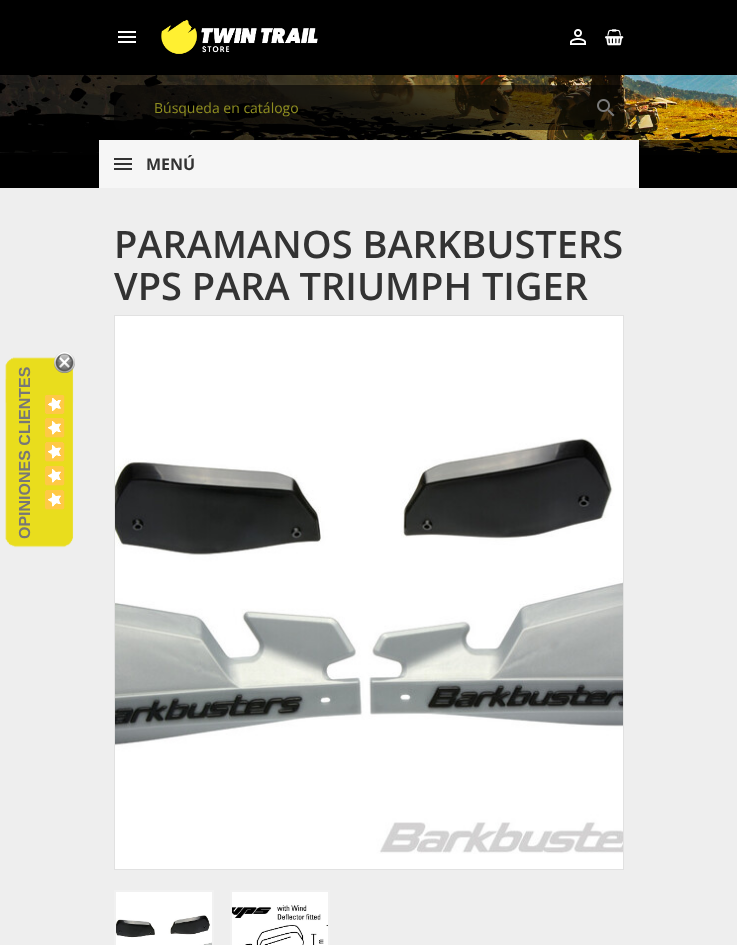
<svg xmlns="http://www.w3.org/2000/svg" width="737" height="945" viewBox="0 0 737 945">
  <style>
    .t1 { font: 14px Open Sans; fill: #908f21; }
    .t2 { font: bold 16px Open Sans; fill: #333; }
    .t3 { font: 600 38px Open Sans; fill: #333; }
    .t4 { font: bold 16px Liberation Sans; fill: #777; }
  </style>
  <rect width="100%" height="100%" fill="#eee"/>
  <image x="0" y="75" width="737" height="113" href="images/1.png"/>
  <rect x="0" y="0" width="737" height="75" fill="#000"/>
  <image x="118" y="31" width="18" height="12" href="images/2.png"/>
  <image x="161" y="19" width="157" height="35" href="images/3.png"/>
  <image x="570" y="29" width="16" height="16" href="images/4.png"/>
  <image x="605" y="29" width="19" height="17" href="images/5.png"/>
  <rect x="114" y="85" width="510" height="45" rx="5" fill="#01010199"/>
  <text x="154" y="113" class="t1">Búsqueda en catálogo</text>
  <image x="597" y="99" width="18" height="18" href="images/6.png"/>
  <rect x="0" y="140" width="737" height="15" fill="#01010199"/>
  <rect x="99" y="140" width="540" height="48" fill="#f6f6f6"/>
  <rect x="114" y="158" width="18" height="2" fill="#333"/>
  <rect x="114" y="163" width="18" height="2" fill="#333"/>
  <rect x="114" y="168" width="18" height="2" fill="#333"/>
  <text x="146" y="170" class="t2">MENÚ</text>
  <text x="114" y="258" class="t3">PARAMANOS BARKBUSTERS</text>
  <text x="114" y="300" class="t3">VPS PARA TRIUMPH TIGER</text>
  <rect x="114.5" y="315.5" width="509" height="554" fill="#fff" stroke="#e1e1e1"/>
  <image x="115" y="437" width="508" height="417" href="images/7.png"/>
  <rect x="115" y="891" width="98" height="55" fill="none" stroke="#f1f1f1" stroke-width="2"/>
  <rect x="231" y="891" width="98" height="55" fill="none" stroke="#f1f1f1" stroke-width="2"/>
  <image x="116" y="892" width="96" height="53" href="images/8.png"/>
  <image x="232" y="892" width="96" height="53" href="images/9.png"/>
  <image x="5" y="357" width="69" height="191" href="images/11.png"/>
  <image x="54" y="352" width="21" height="21" href="images/10.png"/>
  <text x="30" y="539" transform="rotate(-90 30 539)" class="t4">OPINIONES CLIENTES</text>
  <image x="45" y="395" width="20" height="115" href="images/12.png"/>
</svg>
